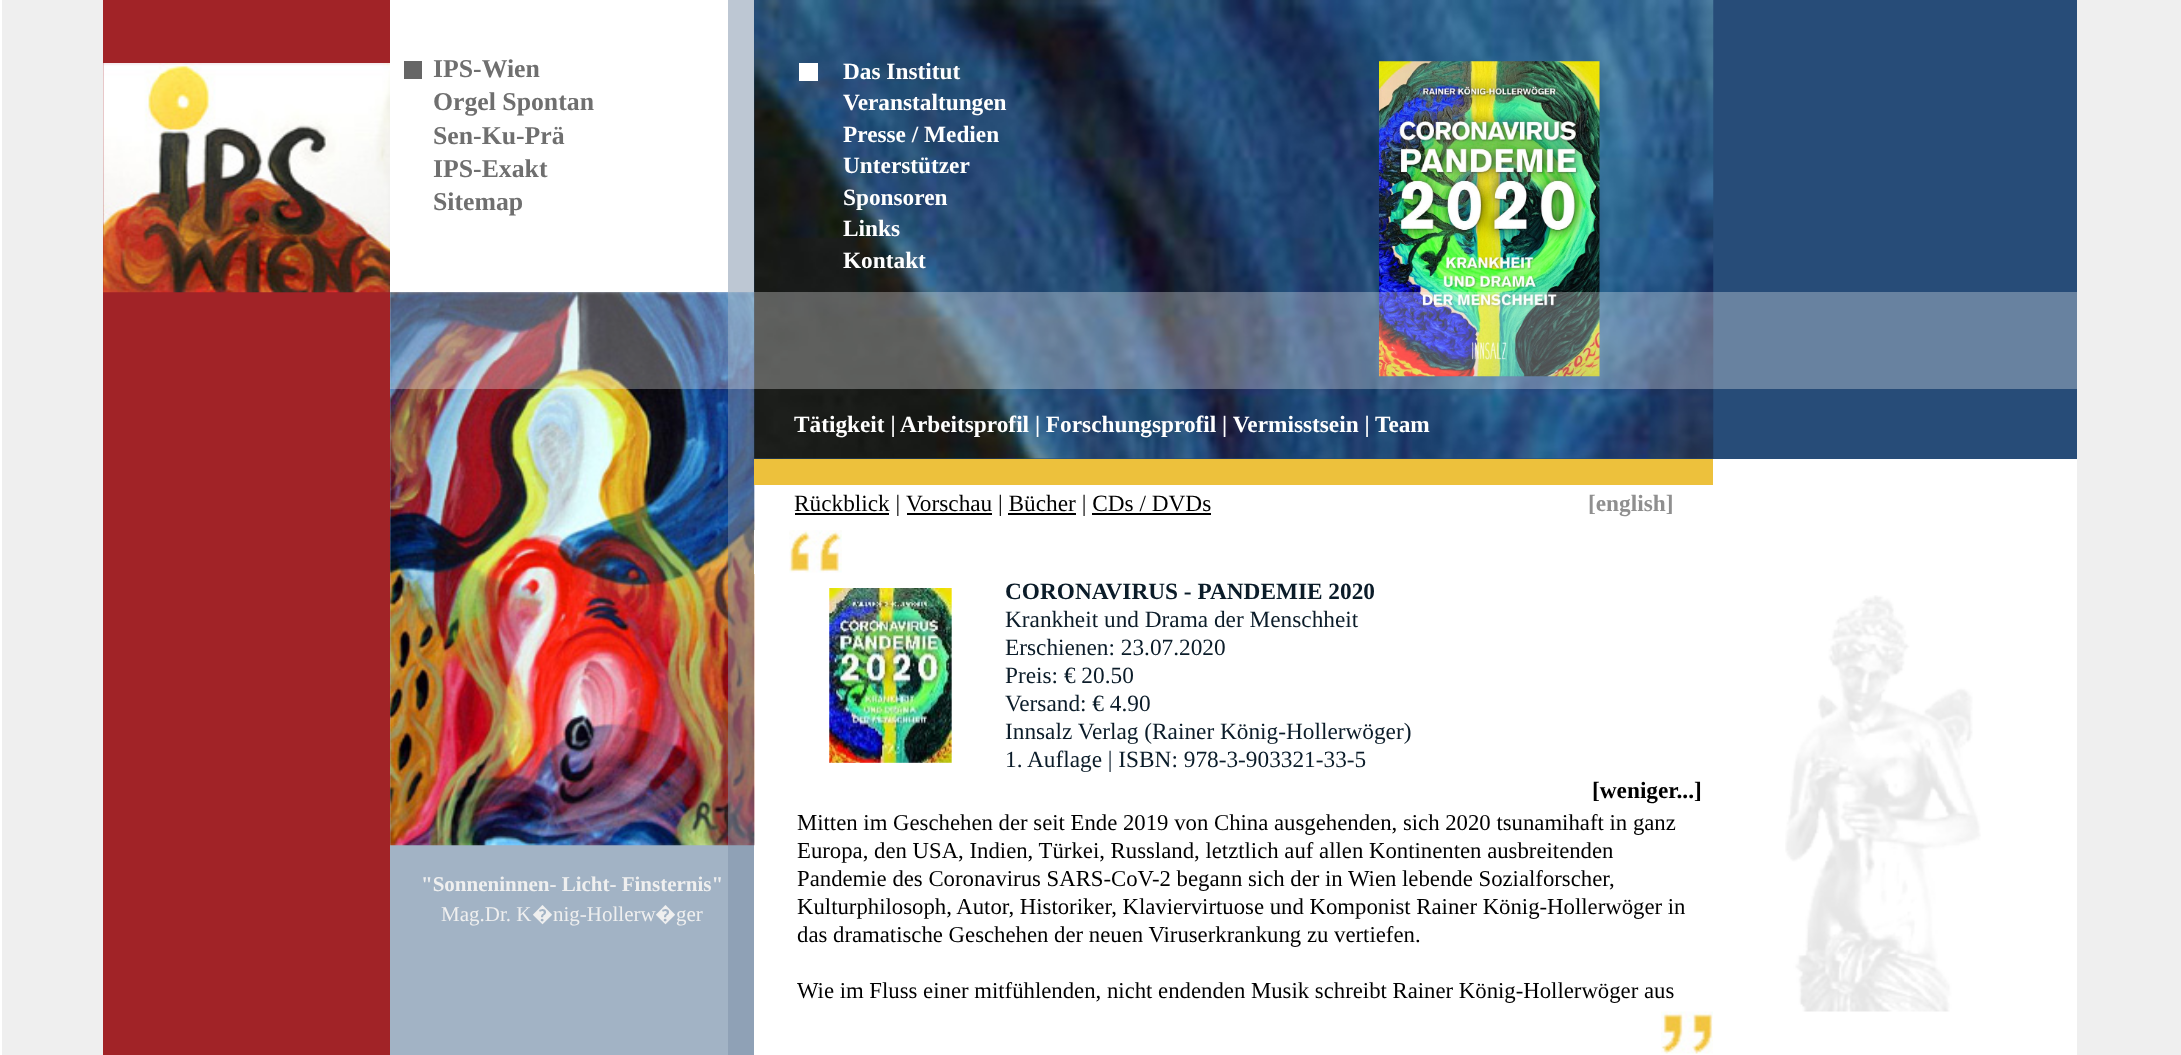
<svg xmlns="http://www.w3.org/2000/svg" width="2181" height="1055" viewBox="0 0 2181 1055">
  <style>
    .t1 { font: bold 25.75px Liberation Serif; fill: #6f6f6f; }
    .t2 { font: bold 23.3px Liberation Serif; fill: #fff; }
    .t3 { font: 23.3px Liberation Serif; fill: #000; }
    .t4 { font: bold 23.3px Liberation Serif; fill: #8f8f8f; }
    .t5 { font: bold 21px Liberation Serif; fill: #efefef; }
    .t6 { font: 21px Liberation Serif; fill: #efefef; }
    .t7 { font: 21px Noto Sans; fill: #efefef; }
    .t8 { font: bold 23.3px Liberation Serif; fill: #0b1c29; }
    .t9 { font: 23.3px Liberation Serif; fill: #0b1c29; }
    .t10 { font: bold 23.3px Liberation Serif; fill: #000; }
    .t11 { font: 22.75px Liberation Serif; fill: #000; }
  </style>
  <rect width="100%" height="100%" fill="#fff"/>
  <rect x="2" y="0" width="101" height="1055" fill="#efefef"/>
  <rect x="103" y="0" width="287" height="1055" fill="#a12327"/>
  <image x="103" y="63" width="287" height="230" href="images/1.png"/>
  <rect x="404" y="61" width="18" height="18" fill="#666"/>
  <text x="433" y="77" class="t1">IPS-Wien</text>
  <text x="433" y="110" class="t1">Orgel Spontan</text>
  <text x="433" y="144" class="t1">Sen-Ku-Prä</text>
  <text x="433" y="177" class="t1">IPS-Exakt</text>
  <text x="433" y="210" class="t1">Sitemap</text>
  <rect x="390" y="292" width="364" height="763" fill="#a2b3c5"/>
  <image x="390" y="292" width="365" height="554" href="images/5.png"/>
  <rect x="728" y="0" width="26" height="1055" fill="#7b90a780"/>
  <rect x="754" y="0" width="1323" height="459" fill="#274c78"/>
  <image x="754" y="0" width="960" height="459" href="images/2.png"/>
  <rect x="2077" y="0" width="104" height="1055" fill="#efefef"/>
  <rect x="799" y="63" width="19" height="18" fill="#fff"/>
  <text x="843" y="79" class="t2">Das Institut</text>
  <text x="843" y="110" class="t2">Veranstaltungen</text>
  <text x="843" y="142" class="t2">Presse / Medien</text>
  <text x="843" y="173" class="t2">Unterstützer</text>
  <text x="843" y="205" class="t2">Sponsoren</text>
  <text x="843" y="236" class="t2">Links</text>
  <text x="843" y="268" class="t2">Kontakt</text>
  <image x="1379" y="61" width="221" height="316" href="images/3.png"/>
  <rect x="390" y="292" width="1687" height="97" fill="#ffffff4d"/>
  <text x="794" y="432" class="t2">Tätigkeit | Arbeitsprofil | Forschungsprofil | Vermisstsein | Team</text>
  <rect x="754" y="459" width="959" height="26" fill="#edc13c"/>
  <rect x="795" y="513" width="94" height="2" fill="#000"/>
  <text x="794" y="511" class="t3">Rückblick |</text>
  <rect x="907" y="513" width="85" height="2" fill="#000"/>
  <text x="906" y="511" class="t3">Vorschau | Bücher | CDs / DVDs</text>
  <rect x="1008" y="513" width="68" height="2" fill="#000"/>
  <rect x="1092" y="513" width="119" height="2" fill="#000"/>
  <text x="1588" y="511" class="t4">[english]</text>
  <rect x="754" y="530" width="1" height="44" fill="#fff"/>
  <image x="789" y="530" width="53" height="43" href="images/4.png"/>
  <text x="421" y="891" class="t5">"Sonneninnen- Licht- Finsternis"</text>
  <text x="441" y="921" class="t6">Mag.Dr. K</text>
  <text x="532" y="921" class="t7">�</text>
  <text x="553" y="921" class="t6">nig-Hollerw</text>
  <text x="655" y="921" class="t7">�</text>
  <text x="676" y="921" class="t6">ger</text>
  <image x="829" y="588" width="123" height="175" href="images/6.png"/>
  <text x="1005" y="599" class="t8">CORONAVIRUS - PANDEMIE 2020</text>
  <text x="1005" y="627" class="t9">Krankheit und Drama der Menschheit</text>
  <text x="1005" y="655" class="t9">Erschienen: 23.07.2020</text>
  <text x="1005" y="683" class="t9">Preis: € 20.50</text>
  <text x="1005" y="711" class="t9">Versand: € 4.90</text>
  <text x="1005" y="739" class="t9">Innsalz Verlag (Rainer König-Hollerwöger)</text>
  <text x="1005" y="767" class="t9">1. Auflage | ISBN: 978-3-903321-33-5</text>
  <text x="1592" y="798" class="t10">[weniger...]</text>
  <text x="797" y="830" class="t11">Mitten im Geschehen der seit Ende 2019 von China ausgehenden, sich 2020 tsunamihaft in ganz</text>
  <text x="797" y="858" class="t11">Europa, den USA, Indien, Türkei, Russland, letztlich auf allen Kontinenten ausbreitenden</text>
  <text x="797" y="886" class="t11">Pandemie des Coronavirus SARS-CoV-2 begann sich der in Wien lebende Sozialforscher,</text>
  <text x="797" y="914" class="t11">Kulturphilosoph, Autor, Historiker, Klaviervirtuose und Komponist Rainer König-Hollerwöger in</text>
  <text x="797" y="942" class="t11">das dramatische Geschehen der neuen Viruserkrankung zu vertiefen.</text>
  <text x="797" y="998" class="t11">Wie im Fluss einer mitfühlenden, nicht endenden Musik schreibt Rainer König-Hollerwöger aus</text>
  <image x="1785" y="595" width="196" height="417" href="images/7.png"/>
  <image x="1661" y="1011" width="52" height="43" href="images/8.png"/>
</svg>
